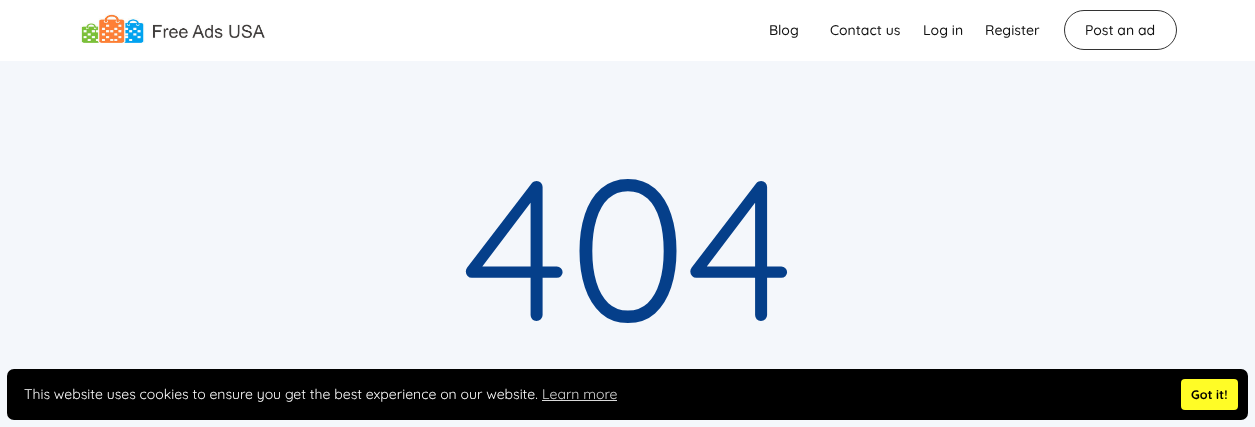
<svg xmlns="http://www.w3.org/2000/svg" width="1255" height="427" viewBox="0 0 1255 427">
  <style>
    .t1 { font: 500 14px Quicksand; fill: #111; }
    .t2 { font: 200px Quicksand; fill: #053f8a; }
    .t3 { font: 14px Quicksand; fill: #fff; }
    .t4 { font: 14px Quicksand; fill: #d9d9d9; }
    .t5 { font: bold 12.5px Quicksand; fill: #000; }
  </style>
  <rect width="100%" height="100%" fill="#f4f7fb"/>
  <rect x="0" y="0" width="1255" height="61" fill="#fff"/>
  <image x="80" y="14" width="185" height="29" href="images/1.png"/>
  <text x="769" y="35" class="t1">Blog</text>
  <text x="830" y="35" class="t1">Contact us</text>
  <text x="923" y="35" class="t1">Log in</text>
  <text x="985" y="35" class="t1">Register</text>
  <rect x="1064.5" y="10.5" width="112" height="39" rx="19.5" fill="none" stroke="#333"/>
  <text x="1085" y="35" class="t1">Post an ad</text>
  <text x="463" y="321" class="t2">404</text>
  <rect x="8.5" y="370.5" width="1238" height="48" rx="5.5" fill="#000" stroke="#000" stroke-width="3"/>
  <text x="24" y="399" class="t3">This website uses cookies to ensure you get the best experience on our website.</text>
  <text x="542" y="399" class="t4">Learn more</text>
  <rect x="542" y="400" width="75" height="1" fill="#d9d9d9"/>
  <rect x="1181" y="379" width="57" height="31" rx="4" fill="#fffc26"/>
  <text x="1191" y="399" class="t5">Got it!</text>
</svg>
